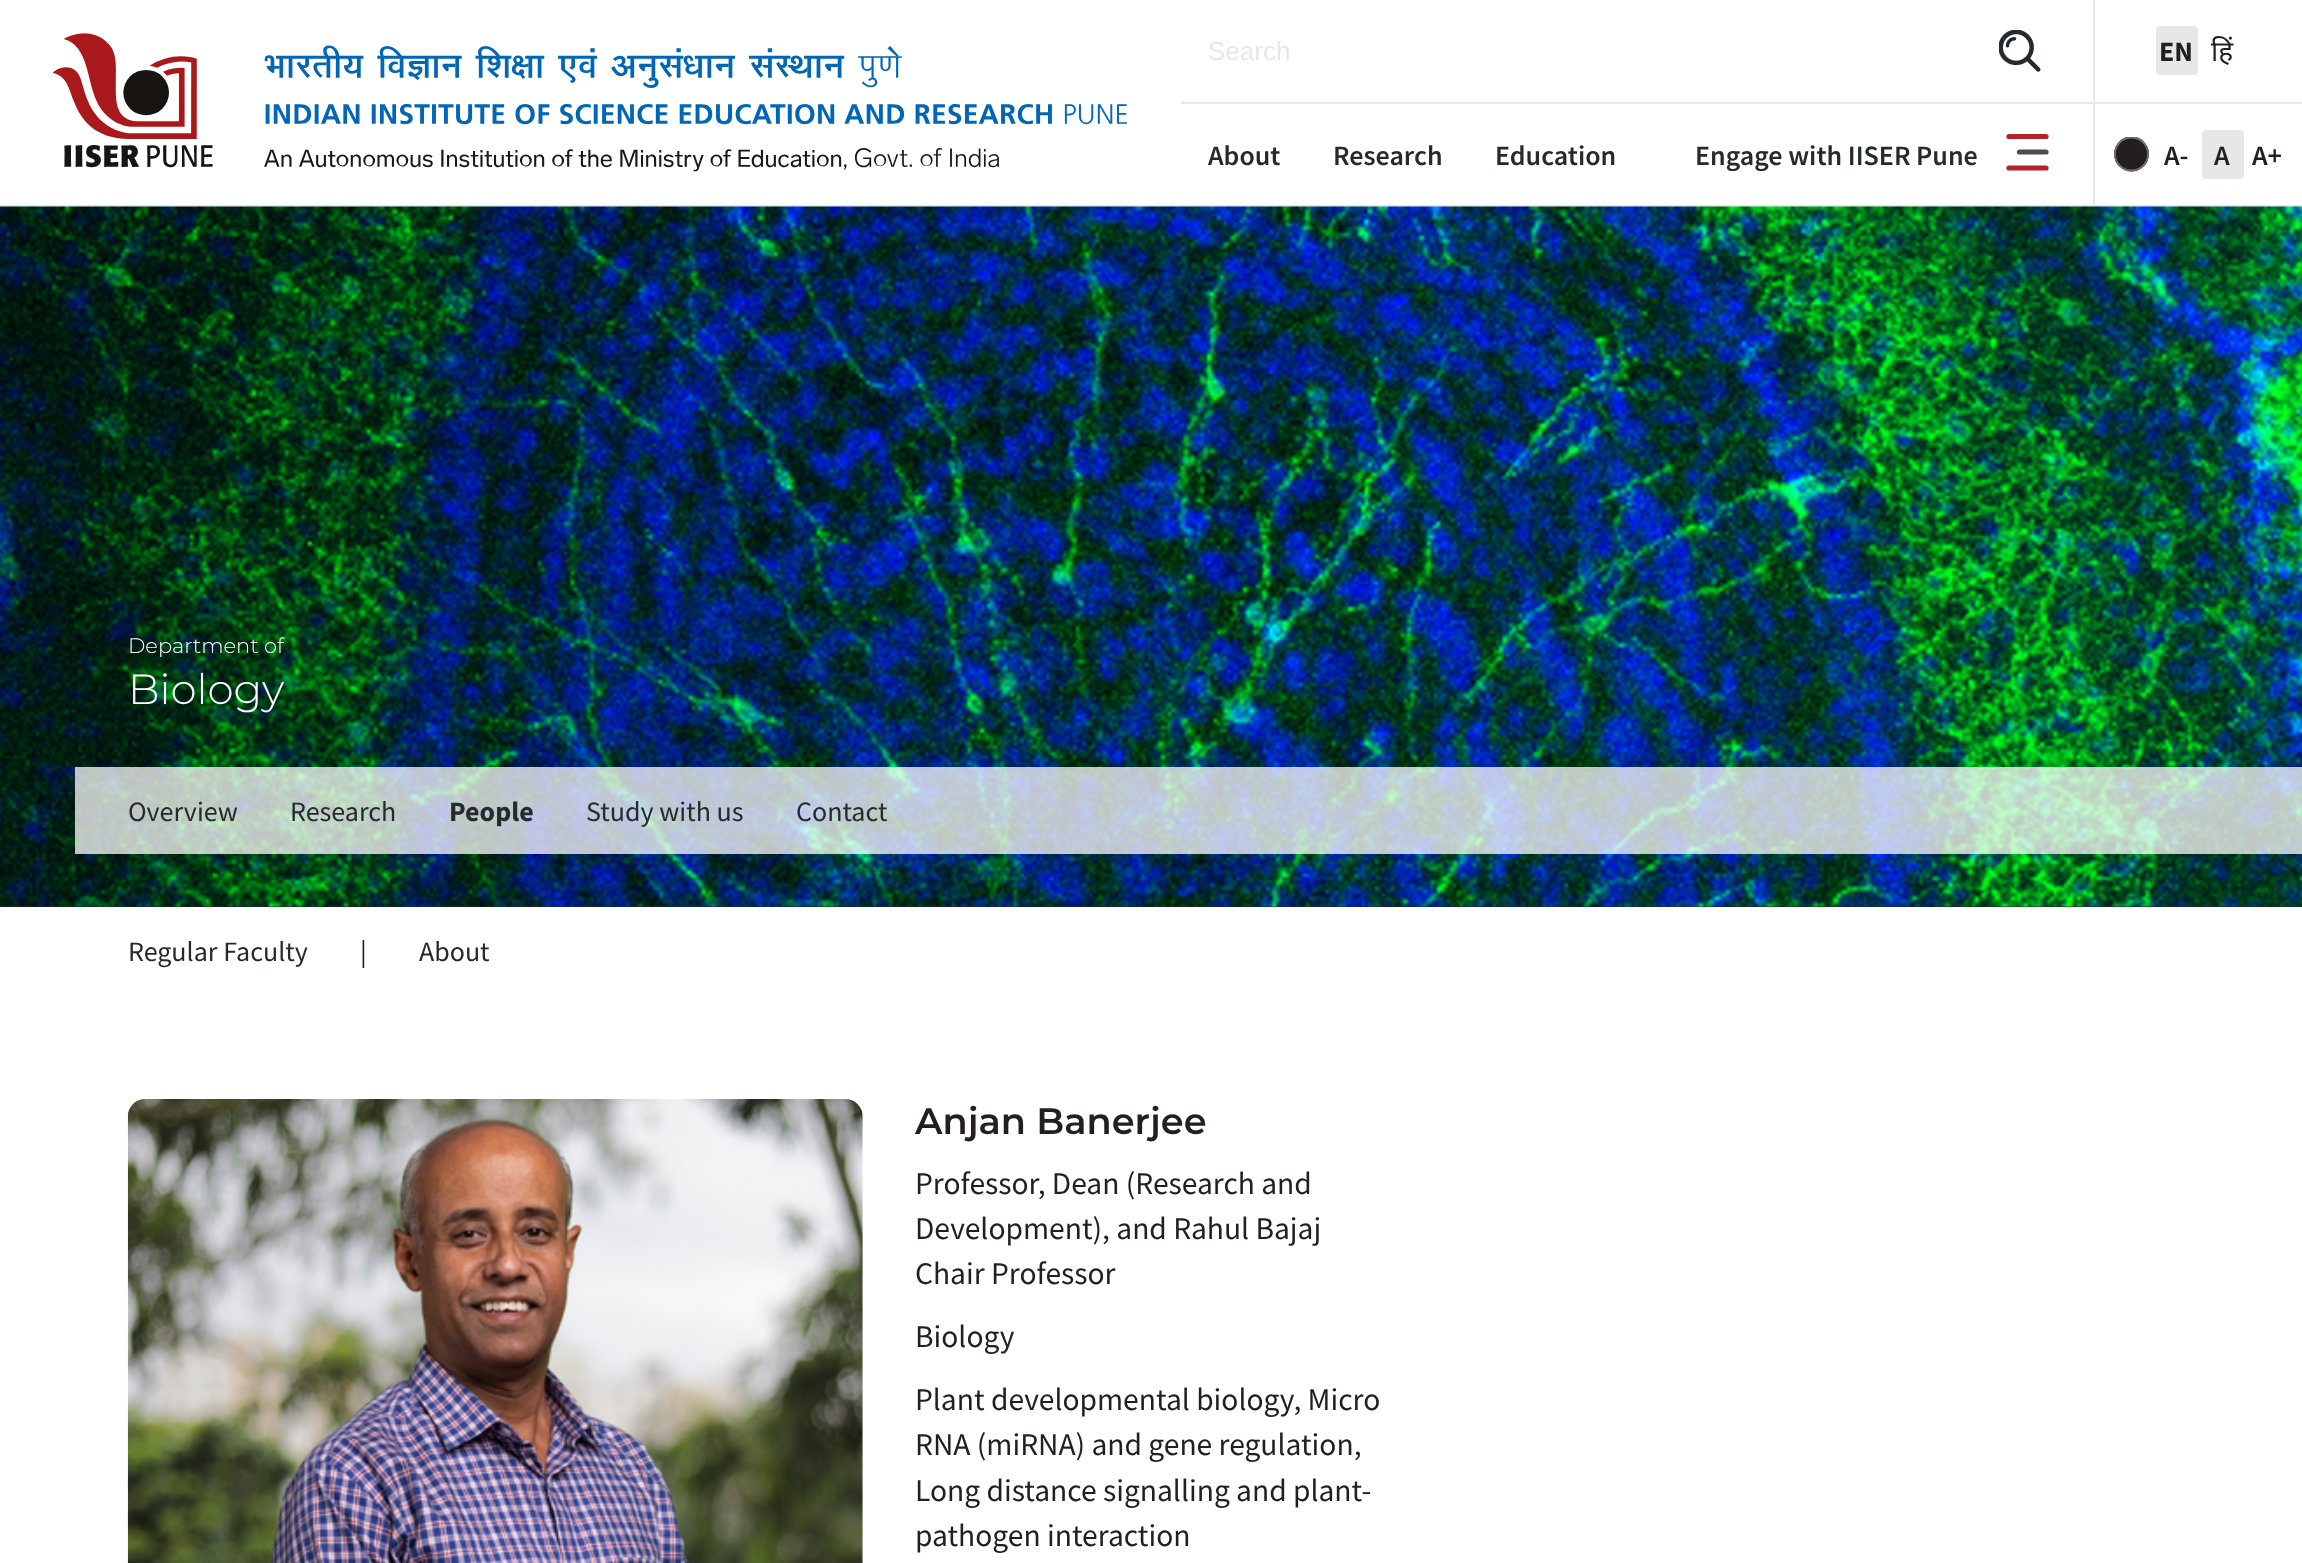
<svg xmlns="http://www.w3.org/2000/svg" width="2302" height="1563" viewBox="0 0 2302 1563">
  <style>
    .t1 { font: 26px Liberation Sans; fill: #e6e7e8; }
    .t2 { font: bold 28px Source Sans Pro; fill: #231f20; }
    .t3 { font: 28px Noto Sans; fill: #231f20; }
    .t4 { font: 600 28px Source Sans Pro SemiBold; fill: #252a2d; }
    .t5 { font: 600 28px Source Sans Pro SemiBold; fill: #231f20; }
    .t6 { font: 300 21px Montserrat; fill: #fff; }
    .t7 { font: 300 42px Montserrat; fill: #fff; }
    .t8 { font: 28px Source Sans Pro; fill: #252a2d; }
    .t9 { font: bold 28px Source Sans Pro; fill: #252a2d; }
    .t10 { font: 28px Source Sans Pro; fill: #231f20; }
    .t11 { font: 600 36.75px Montserrat; fill: #231f20; }
    .t12 { font: 31.5px Source Sans Pro; fill: #231f20; }
  </style>
  <defs>
    <clipPath id="clip1"><rect x="2114" y="137" width="35" height="35"/></clipPath>
  </defs>
  <rect width="100%" height="100%" fill="#fff"/>
  <rect x="0" y="205" width="2302" height="2" fill="#e6e7e8"/>
  <image x="53" y="33" width="1074" height="139" href="images/1.png"/>
  <rect x="1181" y="102" width="1121" height="2" fill="#e6e7e8"/>
  <text x="1208" y="60" class="t1">Search</text>
  <image x="1999" y="30" width="42" height="42" href="images/2.png"/>
  <rect x="2093" y="0" width="2" height="102" fill="#e6e7e8"/>
  <rect x="2156" y="26" width="42" height="49" rx="4" fill="#e6e7e8"/>
  <text x="2159" y="61" class="t2">EN</text>
  <text x="2211" y="61" class="t3">हिं</text>
  <text x="1208" y="165" class="t4">About</text>
  <text x="1333" y="165" class="t4">Research</text>
  <text x="1495" y="165" class="t4">Education</text>
  <text x="1695" y="165" class="t4">Engage with IISER Pune</text>
  <path d="M2009 136.5H2046" fill="none" stroke="#b62126" stroke-width="5.2" stroke-linecap="round"/>
  <path d="M2019.5 152H2046" fill="none" stroke="#4d4d4f" stroke-width="5.2" stroke-linecap="round"/>
  <path d="M2009 168H2046" fill="none" stroke="#b62126" stroke-width="5.2" stroke-linecap="round"/>
  <rect x="2093" y="103" width="2" height="102" fill="#e6e7e8"/>
  <g clip-path="url(#clip1)">
    <circle cx="2131.5" cy="154" r="17.5" fill="#231f20"/>
    <circle cx="2131.5" cy="154" r="16.5" fill="none" stroke="#707070" stroke-width="1.8"/>
  </g>
  <text x="2164" y="165" class="t5">A-</text>
  <rect x="2202" y="130" width="42" height="49" rx="4" fill="#e6e7e8"/>
  <text x="2214" y="165" class="t5">A</text>
  <text x="2252" y="165" class="t5">A+</text>
  <rect x="0" y="906" width="2302" height="1" fill="#252a2d"/>
  <image x="0" y="206" width="2302" height="701" href="images/3.png"/>
  <text x="128" y="653" class="t6">Department of</text>
  <text x="128" y="704" class="t7">Biology</text>
  <rect x="75" y="767" width="2227" height="87" fill="#ffffffbf"/>
  <text x="128" y="821" class="t8">Overview</text>
  <text x="290" y="821" class="t8">Research</text>
  <text x="449" y="821" class="t9">People</text>
  <text x="586" y="821" class="t8">Study with us</text>
  <text x="796" y="821" class="t8">Contact</text>
  <text x="128" y="961" class="t8">Regular Faculty</text>
  <text x="360" y="961" class="t10">|</text>
  <text x="419" y="961" class="t8">About</text>
  <image x="127" y="1099" width="736" height="464" href="images/4.png"/>
  <text x="915" y="1134" class="t11">Anjan Banerjee</text>
  <text x="915" y="1194" class="t12">Professor, Dean (Research and</text>
  <text x="915" y="1239" class="t12">Development), and Rahul Bajaj</text>
  <text x="915" y="1284" class="t12">Chair Professor</text>
  <text x="915" y="1347" class="t12">Biology</text>
  <text x="915" y="1410" class="t12">Plant developmental biology, Micro</text>
  <text x="915" y="1455" class="t12">RNA (miRNA) and gene regulation,</text>
  <text x="915" y="1501" class="t12">Long distance signalling and plant-</text>
  <text x="915" y="1546" class="t12">pathogen interaction</text>
</svg>
